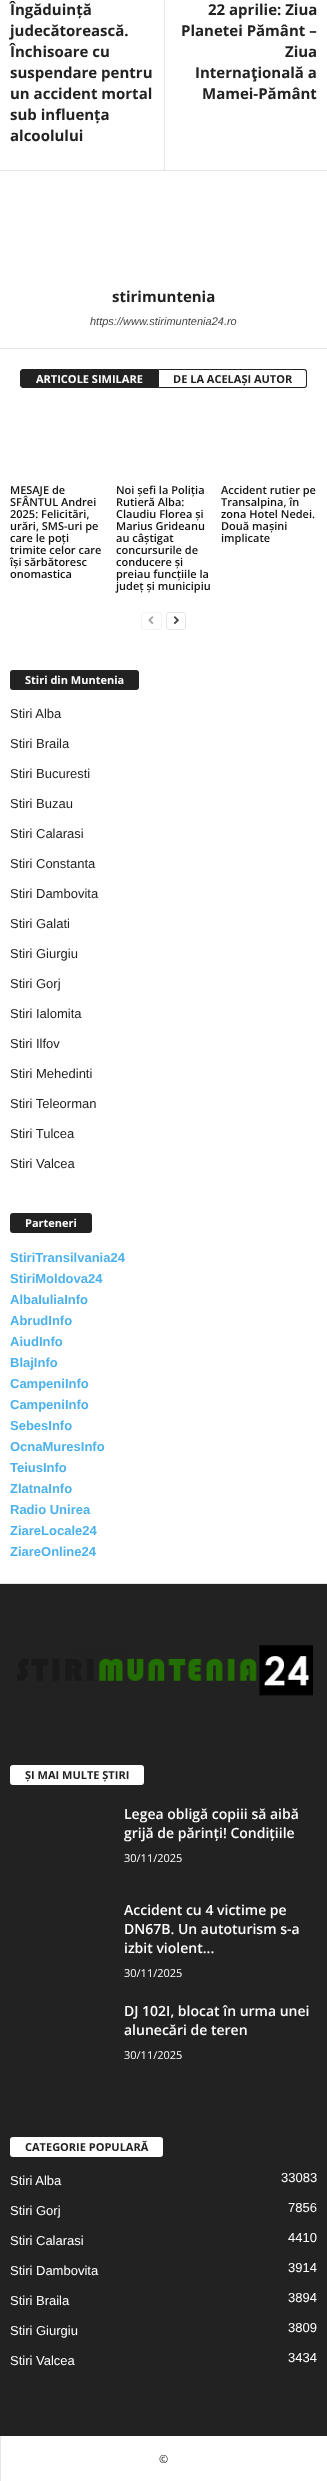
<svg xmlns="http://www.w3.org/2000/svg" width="327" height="2481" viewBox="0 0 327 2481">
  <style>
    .t1 { font: bold 15px Open Sans; fill: #222; }
    .t2 { font: italic 11px Liberation Sans; fill: #444; }
    .t3 { font: bold 11px Open Sans; fill: #fff; }
    .t4 { font: bold 11px Open Sans; fill: #222; }
    .t5 { font: 600 11px Open Sans; fill: #111; }
    .t6 { font: 13px Liberation Sans; fill: #222; }
    .t7 { font: bold 13px Liberation Sans; fill: #4db2ec; }
    .t8 { font: 600 14px Open Sans; fill: #fff; }
    .t9 { font: 11px Open Sans; fill: #fff; }
    .t10 { font: 13px Liberation Sans; fill: #fff; }
    .t11 { font: 11px Open Sans; fill: #222; }
  </style>
  <rect width="100%" height="100%" fill="#fff"/>
  <rect x="0" y="1583" width="327" height="1" fill="#e6e6e6"/>
  <text x="10" y="15" class="t1">Îngăduință</text>
  <text x="10" y="36" class="t1">judecătorească.</text>
  <text x="10" y="57" class="t1">Închisoare cu</text>
  <text x="10" y="78" class="t1">suspendare pentru</text>
  <text x="10" y="99" class="t1">un accident mortal</text>
  <text x="10" y="120" class="t1">sub influența</text>
  <text x="10" y="141" class="t1">alcoolului</text>
  <rect x="164" y="0" width="1" height="170" fill="#e6e6e6"/>
  <text x="208" y="15" class="t1">22 aprilie: Ziua</text>
  <text x="181" y="36" class="t1">Planetei Pământ –</text>
  <text x="285" y="57" class="t1">Ziua</text>
  <text x="195" y="78" class="t1">Internaţională a</text>
  <text x="202" y="99" class="t1">Mamei-Pământ</text>
  <rect x="0" y="170" width="327" height="1" fill="#e6e6e6"/>
  <text x="112" y="302" class="t1">stirimuntenia</text>
  <text x="90" y="325" class="t2">https://www.stirimuntenia24.ro</text>
  <rect x="0" y="348" width="327" height="1" fill="#e6e6e6"/>
  <path d="M23 369.5H158.5V387.5H23C21.5 387.5 20.5 386.5 20.5 385V372C20.5 370.5 21.5 369.5 23 369.5Z" fill="#222" stroke="#222"/>
  <text x="36" y="383" class="t3">ARTICOLE SIMILARE</text>
  <path d="M159 369H304C306 369 307 370 307 372V385C307 387 306 388 304 388H159ZM159 370H304C305 370 306 371 306 372V385C306 386 305 387 304 387H159Z" fill="#222" fill-rule="evenodd"/>
  <text x="173" y="383" class="t4">DE LA ACELAȘI AUTOR</text>
  <text x="10" y="494" class="t5">MESAJE de</text>
  <text x="10" y="506" class="t5">SFÂNTUL Andrei</text>
  <text x="10" y="518" class="t5">2025: Felicitări,</text>
  <text x="10" y="530" class="t5">urări, SMS-uri pe</text>
  <text x="10" y="542" class="t5">care le poți</text>
  <text x="10" y="554" class="t5">trimite celor care</text>
  <text x="10" y="566" class="t5">își sărbătoresc</text>
  <text x="10" y="578" class="t5">onomastica</text>
  <text x="116" y="494" class="t5">Noi șefi la Poliția</text>
  <text x="116" y="506" class="t5">Rutieră Alba:</text>
  <text x="116" y="518" class="t5">Claudiu Florea și</text>
  <text x="116" y="530" class="t5">Marius Grideanu</text>
  <text x="116" y="542" class="t5">au câștigat</text>
  <text x="116" y="554" class="t5">concursurile de</text>
  <text x="116" y="566" class="t5">conducere și</text>
  <text x="116" y="578" class="t5">preiau funcțiile la</text>
  <text x="116" y="590" class="t5">județ și municipiu</text>
  <text x="221" y="494" class="t5">Accident rutier pe</text>
  <text x="221" y="506" class="t5">Transalpina, în</text>
  <text x="221" y="518" class="t5">zona Hotel Nedei.</text>
  <text x="221" y="530" class="t5">Două mașini</text>
  <text x="221" y="542" class="t5">implicate</text>
  <rect x="141.5" y="612.5" width="20" height="17" rx="2.5" fill="none" stroke="#f3f3f3"/>
  <image x="148" y="616" width="6" height="9" href="images/1.png"/>
  <rect x="166.5" y="612.5" width="19" height="17" rx="2.5" fill="none" stroke="#e6e6e6"/>
  <image x="173" y="616" width="6" height="9" href="images/2.png"/>
  <rect x="10" y="670" width="129" height="20" rx="3" fill="#222"/>
  <text x="25" y="684" class="t3">Stiri din Muntenia</text>
  <text x="10" y="718" class="t6">Stiri Alba</text>
  <text x="10" y="748" class="t6">Stiri Braila</text>
  <text x="10" y="778" class="t6">Stiri Bucuresti</text>
  <text x="10" y="808" class="t6">Stiri Buzau</text>
  <text x="10" y="838" class="t6">Stiri Calarasi</text>
  <text x="10" y="868" class="t6">Stiri Constanta</text>
  <text x="10" y="898" class="t6">Stiri Dambovita</text>
  <text x="10" y="928" class="t6">Stiri Galati</text>
  <text x="10" y="958" class="t6">Stiri Giurgiu</text>
  <text x="10" y="988" class="t6">Stiri Gorj</text>
  <text x="10" y="1018" class="t6">Stiri Ialomita</text>
  <text x="10" y="1048" class="t6">Stiri Ilfov</text>
  <text x="10" y="1078" class="t6">Stiri Mehedinti</text>
  <text x="10" y="1108" class="t6">Stiri Teleorman</text>
  <text x="10" y="1138" class="t6">Stiri Tulcea</text>
  <text x="10" y="1168" class="t6">Stiri Valcea</text>
  <rect x="10" y="1213" width="82" height="20" rx="3" fill="#222"/>
  <text x="25" y="1227" class="t3">Parteneri</text>
  <text x="10" y="1262" class="t7">StiriTransilvania24</text>
  <text x="10" y="1283" class="t7">StiriMoldova24</text>
  <text x="10" y="1304" class="t7">AlbaIuliaInfo</text>
  <text x="10" y="1325" class="t7">AbrudInfo</text>
  <text x="10" y="1346" class="t7">AiudInfo</text>
  <text x="10" y="1367" class="t7">BlajInfo</text>
  <text x="10" y="1388" class="t7">CampeniInfo</text>
  <text x="10" y="1409" class="t7">CampeniInfo</text>
  <text x="10" y="1430" class="t7">SebesInfo</text>
  <text x="10" y="1451" class="t7">OcnaMuresInfo</text>
  <text x="10" y="1472" class="t7">TeiusInfo</text>
  <text x="10" y="1493" class="t7">ZlatnaInfo</text>
  <text x="10" y="1514" class="t7">Radio Unirea</text>
  <text x="10" y="1535" class="t7">ZiareLocale24</text>
  <text x="10" y="1556" class="t7">ZiareOnline24</text>
  <rect x="0" y="1584" width="327" height="852" fill="#222"/>
  <image x="17" y="1645" width="296" height="51" href="images/3.png"/>
  <rect x="10" y="1765" width="134" height="20" rx="3" fill="#fff"/>
  <text x="25" y="1779" class="t4">ȘI MAI MULTE ȘTIRI</text>
  <text x="124" y="1819" class="t8">Legea obligă copiii să aibă</text>
  <text x="124" y="1838" class="t8">grijă de părinți! Condițiile</text>
  <text x="124" y="1862" class="t9">30/11/2025</text>
  <text x="124" y="1915" class="t8">Accident cu 4 victime pe</text>
  <text x="124" y="1934" class="t8">DN67B. Un autoturism s-a</text>
  <text x="124" y="1953" class="t8">izbit violent...</text>
  <text x="124" y="1977" class="t9">30/11/2025</text>
  <text x="124" y="2016" class="t8">DJ 102I, blocat în urma unei</text>
  <text x="124" y="2035" class="t8">alunecări de teren</text>
  <text x="124" y="2059" class="t9">30/11/2025</text>
  <rect x="10" y="2137" width="153" height="20" rx="3" fill="#fff"/>
  <text x="25" y="2151" class="t4">CATEGORIE POPULARĂ</text>
  <text x="10" y="2185" class="t10">Stiri Alba</text>
  <text x="281" y="2182" class="t10">33083</text>
  <text x="10" y="2215" class="t10">Stiri Gorj</text>
  <text x="288" y="2212" class="t10">7856</text>
  <text x="10" y="2245" class="t10">Stiri Calarasi</text>
  <text x="288" y="2242" class="t10">4410</text>
  <text x="10" y="2275" class="t10">Stiri Dambovita</text>
  <text x="288" y="2272" class="t10">3914</text>
  <text x="10" y="2305" class="t10">Stiri Braila</text>
  <text x="288" y="2302" class="t10">3894</text>
  <text x="10" y="2335" class="t10">Stiri Giurgiu</text>
  <text x="288" y="2332" class="t10">3809</text>
  <text x="10" y="2365" class="t10">Stiri Valcea</text>
  <text x="288" y="2362" class="t10">3434</text>
  <rect x="0" y="2436" width="1" height="45" fill="#e6e6e6"/>
  <text x="159" y="2463" class="t11">©</text>
</svg>
